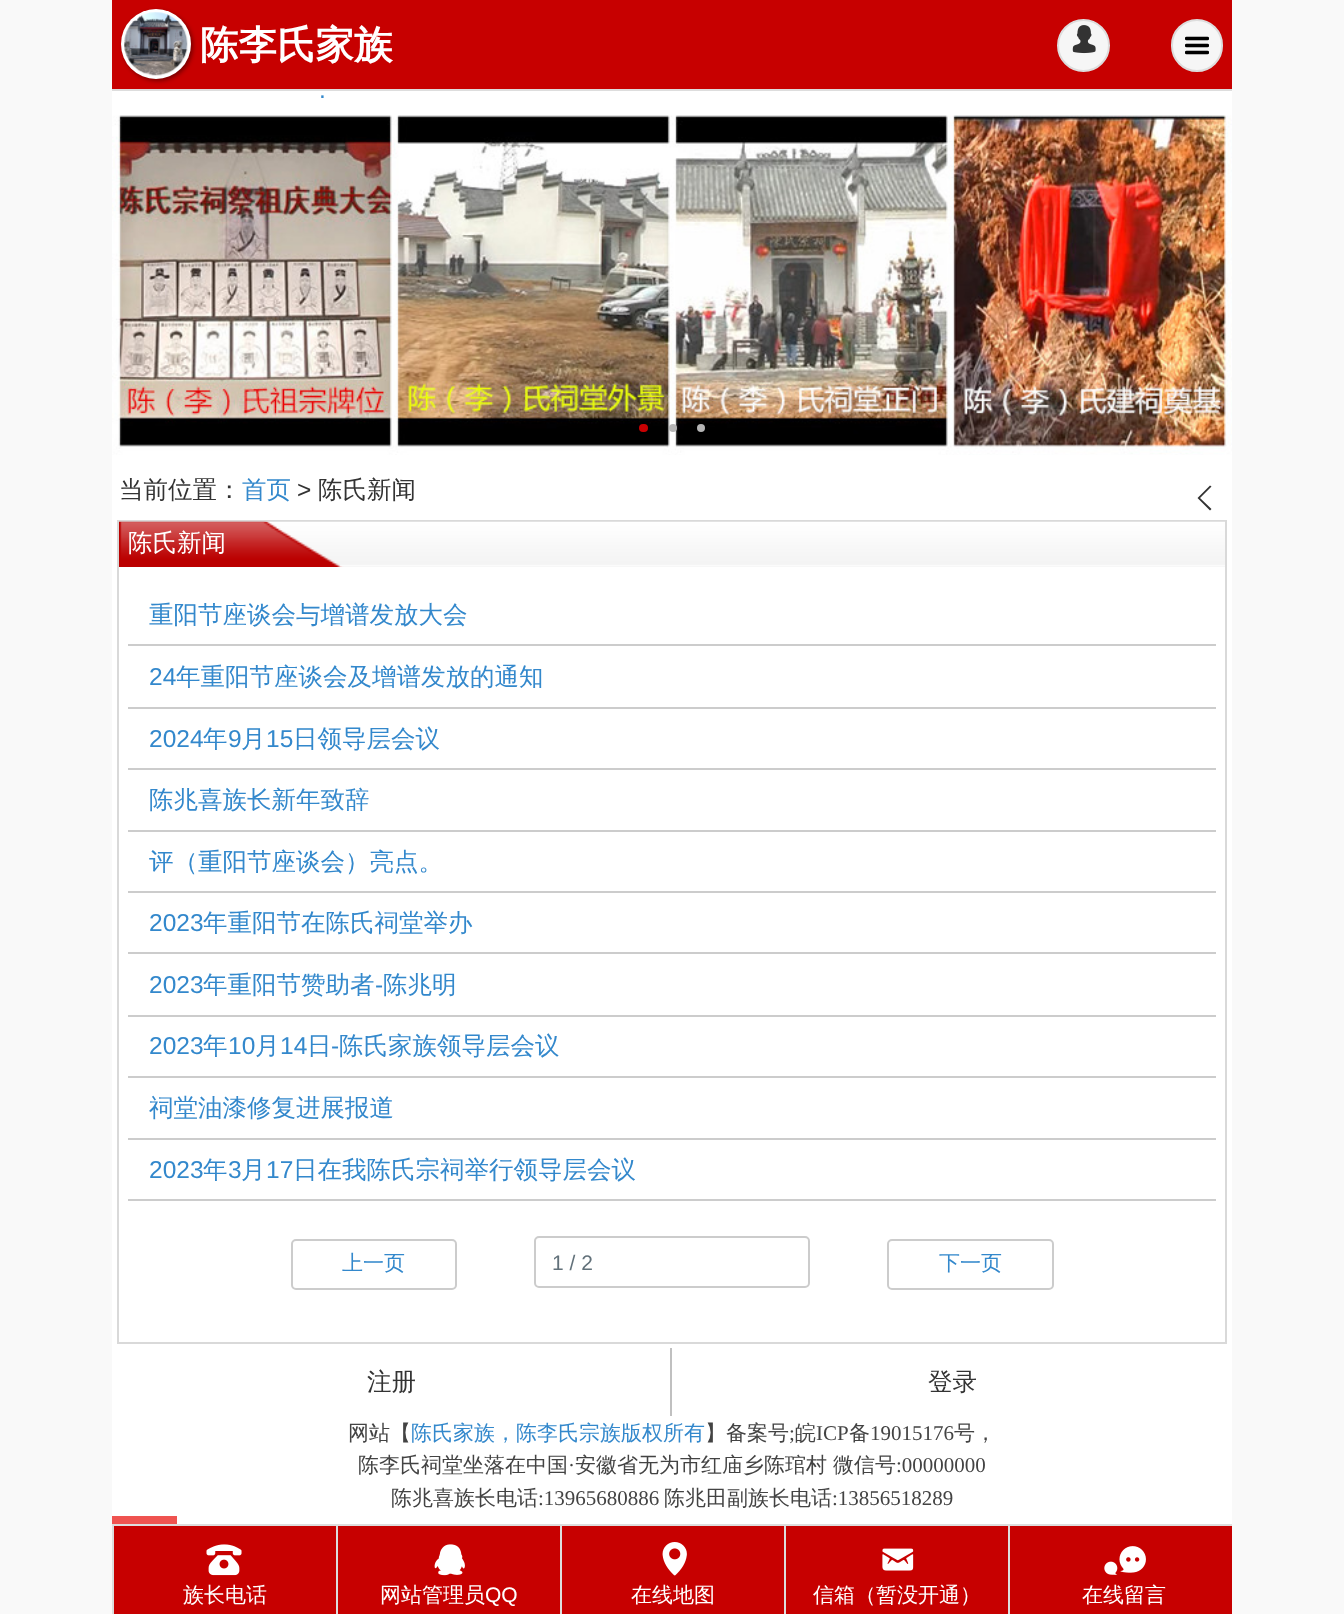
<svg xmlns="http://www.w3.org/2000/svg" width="1344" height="1614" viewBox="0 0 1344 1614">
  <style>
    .t1 { font: bold 38.5px WenQuanYi Zen Hei; fill: #fff; }
    .t2 { font: 24.5px Liberation Sans; fill: #38c; }
    .t3 { font: 500 24.5px WenQuanYi Zen Hei; fill: #333; }
    .t4 { font: 500 24.5px WenQuanYi Zen Hei; fill: #38c; }
    .t5 { font: 24.5px Liberation Sans; fill: #333; }
    .t6 { font: 500 24.5px WenQuanYi Zen Hei; fill: #fff; }
    .t7 { font: 500 21px WenQuanYi Zen Hei; fill: #38c; }
    .t8 { font: 21px Liberation Sans; fill: #62717a; }
    .t9 { font: 500 21px WenQuanYi Zen Hei; fill: #434343; }
    .t10 { font: 21px Liberation Serif; fill: #434343; }
    .t11 { font: 500 21px WenQuanYi Zen Hei; fill: #fff; }
    .t12 { font: 21px Liberation Sans; fill: #fff; }
  </style>
  <rect width="100%" height="100%" fill="#f9f9f9"/>
  <rect x="112" y="91" width="1120" height="1433" fill="#fff"/>
  <rect x="112" y="0" width="1120" height="89" fill="#c70000"/>
  <rect x="112" y="89" width="1120" height="2" fill="#ddd"/>
  <rect x="123" y="11" width="70" height="70" rx="35" fill="#00000066" filter="blur(2px)"/>
  <circle cx="156" cy="44" r="35" fill="#fff"/>
  <image x="124" y="12" width="64" height="64" href="images/1.png"/>
  <text x="200" y="58" class="t1">陈李氏家族</text>
  <circle cx="1083.5" cy="45.5" r="25.5" fill="#f6f6f6" stroke="#ddd" stroke-width="2"/>
  <image x="1072" y="25" width="24" height="29" href="images/2.png"/>
  <rect x="1172" y="20" width="50" height="51" rx="25" fill="#f6f6f6" stroke="#ddd" stroke-width="2"/>
  <image x="1185" y="36" width="24" height="19" href="images/3.png"/>
  <text x="319" y="98" class="t2">.</text>
  <image x="112" y="115" width="1120" height="340" href="images/4.png"/>
  <rect x="639" y="424" width="9" height="8" rx="4" fill="#c80002"/>
  <circle cx="673" cy="428" r="4" fill="#b5b5b5"/>
  <circle cx="701" cy="428" r="4" fill="#b5b5b5"/>
  <text x="119" y="498" class="t3">当前位置：</text>
  <text x="242" y="498" class="t4">首页</text>
  <text x="297" y="498" class="t5">&gt;</text>
  <text x="318" y="498" class="t3">陈氏新闻</text>
  <path d="M1211.5 486.5L1210 485.5L1197.5 498L1210 510.5L1211.5 509L1200 498Z" fill="#333"/>
  <rect x="118" y="521" width="1108" height="822" fill="none" stroke="#d9d9d9" stroke-width="2"/>
  <image x="119" y="521" width="1106" height="46" href="images/5.png"/>
  <text x="128" y="551" class="t6">陈氏新闻</text>
  <rect x="128" y="644" width="1088" height="2" fill="#ccc"/>
  <text x="149" y="623" class="t4">重阳节座谈会与增谱发放大会</text>
  <rect x="128" y="707" width="1088" height="2" fill="#ccc"/>
  <text x="149" y="685" class="t2">24</text>
  <text x="176" y="685" class="t4">年重阳节座谈会及增谱发放的通知</text>
  <rect x="128" y="768" width="1088" height="2" fill="#ccc"/>
  <text x="149" y="747" class="t2">2024</text>
  <text x="203" y="747" class="t4">年</text>
  <text x="228" y="747" class="t2">9</text>
  <text x="241" y="747" class="t4">月</text>
  <text x="266" y="747" class="t2">15</text>
  <text x="293" y="747" class="t4">日领导层会议</text>
  <rect x="128" y="830" width="1088" height="2" fill="#ccc"/>
  <text x="149" y="808" class="t4">陈兆喜族长新年致辞</text>
  <rect x="128" y="891" width="1088" height="2" fill="#ccc"/>
  <text x="149" y="870" class="t4">评（重阳节座谈会）亮点。</text>
  <rect x="128" y="952" width="1088" height="2" fill="#ccc"/>
  <text x="149" y="931" class="t2">2023</text>
  <text x="203" y="931" class="t4">年重阳节在陈氏祠堂举办</text>
  <rect x="128" y="1015" width="1088" height="2" fill="#ccc"/>
  <text x="149" y="993" class="t2">2023</text>
  <text x="203" y="993" class="t4">年重阳节赞助者</text>
  <text x="375" y="993" class="t2">-</text>
  <text x="383" y="993" class="t4">陈兆明</text>
  <rect x="128" y="1076" width="1088" height="2" fill="#ccc"/>
  <text x="149" y="1054" class="t2">2023</text>
  <text x="203" y="1054" class="t4">年</text>
  <text x="228" y="1054" class="t2">10</text>
  <text x="255" y="1054" class="t4">月</text>
  <text x="280" y="1054" class="t2">14</text>
  <text x="307" y="1054" class="t4">日</text>
  <text x="331" y="1054" class="t2">-</text>
  <text x="339" y="1054" class="t4">陈氏家族领导层会议</text>
  <rect x="128" y="1138" width="1088" height="2" fill="#ccc"/>
  <text x="149" y="1116" class="t4">祠堂油漆修复进展报道</text>
  <rect x="128" y="1199" width="1088" height="2" fill="#ccc"/>
  <text x="149" y="1178" class="t2">2023</text>
  <text x="203" y="1178" class="t4">年</text>
  <text x="228" y="1178" class="t2">3</text>
  <text x="241" y="1178" class="t4">月</text>
  <text x="266" y="1178" class="t2">17</text>
  <text x="293" y="1178" class="t4">日在我陈氏宗祠举行领导层会议</text>
  <rect x="292" y="1240" width="164" height="49" rx="4" fill="none" stroke="#ccc" stroke-width="2"/>
  <text x="342" y="1270" class="t7">上一页</text>
  <rect x="535" y="1237" width="274" height="50" rx="4" fill="none" stroke="#ccc" stroke-width="2"/>
  <text x="552" y="1270" class="t8">1 / 2</text>
  <rect x="888" y="1240" width="165" height="49" rx="4" fill="none" stroke="#ccc" stroke-width="2"/>
  <text x="939" y="1270" class="t7">下一页</text>
  <rect x="670" y="1348" width="2" height="68" fill="#c0c0c0"/>
  <text x="367" y="1390" class="t3">注册</text>
  <text x="928" y="1390" class="t3">登录</text>
  <text x="348" y="1440" class="t9">网站【</text>
  <text x="411" y="1440" class="t7">陈氏家族，陈李氏宗族版权所有</text>
  <text x="705" y="1440" class="t9">】备案号</text>
  <text x="789" y="1440" class="t10">;</text>
  <text x="795" y="1440" class="t9">皖</text>
  <text x="816" y="1440" class="t10">ICP</text>
  <text x="849" y="1440" class="t9">备</text>
  <text x="870" y="1440" class="t10">19015176</text>
  <text x="954" y="1440" class="t9">号，</text>
  <text x="358" y="1472" class="t9">陈李氏祠堂坐落在中国</text>
  <text x="568" y="1472" class="t10">·</text>
  <text x="575" y="1472" class="t9">安徽省无为市红庙乡陈琯村</text>
  <text x="833" y="1472" class="t9">微信号</text>
  <text x="896" y="1472" class="t10">:00000000</text>
  <text x="391" y="1505" class="t9">陈兆喜族长电话</text>
  <text x="538" y="1505" class="t10">:13965680886</text>
  <text x="664" y="1505" class="t9">陈兆田副族长电话</text>
  <text x="832" y="1505" class="t10">:13856518289</text>
  <rect x="112" y="1516" width="65" height="8" fill="#ef5350"/>
  <rect x="114" y="1526" width="1118" height="88" fill="#c70000"/>
  <rect x="112" y="1524" width="1120" height="2" fill="#ddd"/>
  <rect x="112" y="1526" width="2" height="88" fill="#ddd"/>
  <image x="206" y="1544" width="36" height="32" href="images/6.png"/>
  <text x="183" y="1602" class="t11">族长电话</text>
  <rect x="336" y="1526" width="2" height="88" fill="#ddd"/>
  <image x="434" y="1544" width="31" height="32" href="images/7.png"/>
  <text x="380" y="1602" class="t11">网站管理员</text>
  <text x="485" y="1602" class="t12">QQ</text>
  <rect x="560" y="1526" width="2" height="88" fill="#ddd"/>
  <image x="662" y="1542" width="25" height="34" href="images/8.png"/>
  <text x="631" y="1602" class="t11">在线地图</text>
  <rect x="784" y="1526" width="2" height="88" fill="#ddd"/>
  <image x="882" y="1548" width="32" height="23" href="images/9.png"/>
  <text x="813" y="1602" class="t11">信箱（暂没开通）</text>
  <rect x="1008" y="1526" width="2" height="88" fill="#ddd"/>
  <image x="1104" y="1546" width="42" height="29" href="images/10.png"/>
  <text x="1082" y="1602" class="t11">在线留言</text>
</svg>
